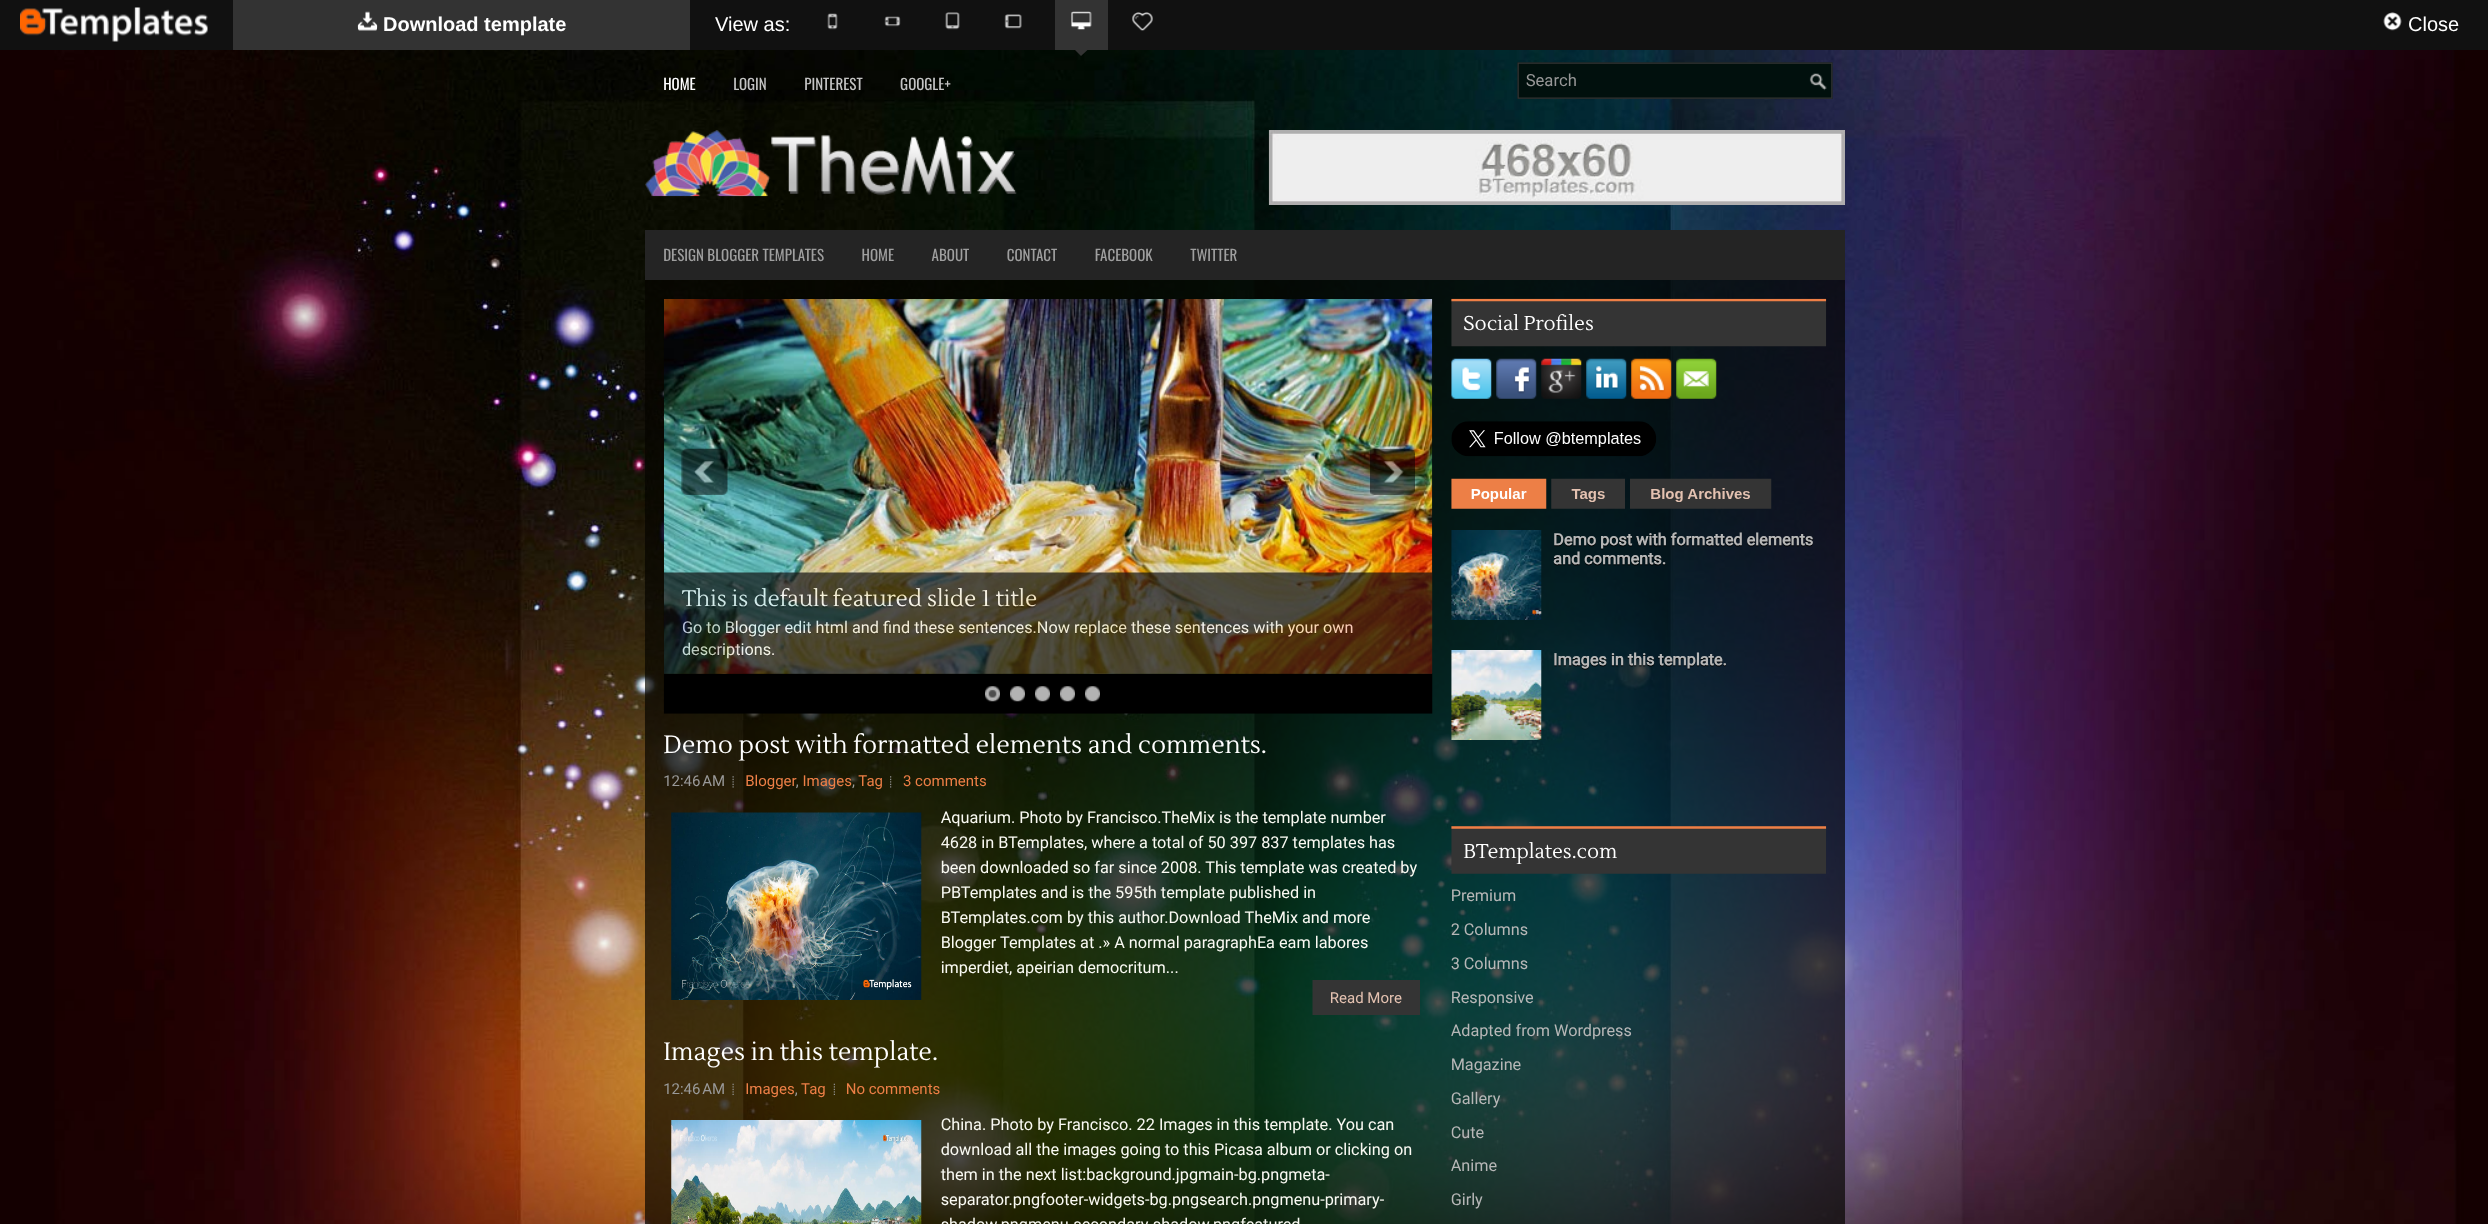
<svg xmlns="http://www.w3.org/2000/svg" width="2488" height="1224" viewBox="0 0 2488 1224">
  <style>
    .t1 { font: bold 20px Liberation Sans; fill: #fff; }
    .t2 { font: 20px Liberation Sans; fill: #fff; }
  </style>
  <rect width="100%" height="100%" fill="#fff"/>
  <rect x="0" y="0" width="2488" height="50" fill="#111"/>
  <image x="20" y="7" width="188" height="35" href="images/1.png"/>
  <rect x="233" y="0" width="457" height="50" fill="#333"/>
  <image x="357" y="11" width="21" height="20" href="images/2.png"/>
  <text x="383" y="31" class="t1">Download template</text>
  <text x="715" y="31" class="t2">View as:</text>
  <image x="827" y="13" width="11" height="17" href="images/3.png"/>
  <image x="884" y="16" width="17" height="11" href="images/4.png"/>
  <image x="945" y="12" width="15" height="18" href="images/5.png"/>
  <image x="1004" y="14" width="18" height="15" href="images/6.png"/>
  <rect x="1055" y="0" width="53" height="50" fill="#333"/>
  <image x="1071" y="11" width="21" height="19" href="images/7.png"/>
  <image x="0" y="50" width="2488" height="1174" href="images/10.png"/>
  <path d="M1075 50H1087.5L1081 56Z" fill="#333"/>
  <image x="1132" y="12" width="21" height="19" href="images/8.png"/>
  <image x="2383" y="12" width="19" height="19" href="images/9.png"/>
  <text x="2408" y="31" class="t2">Close</text>
</svg>
